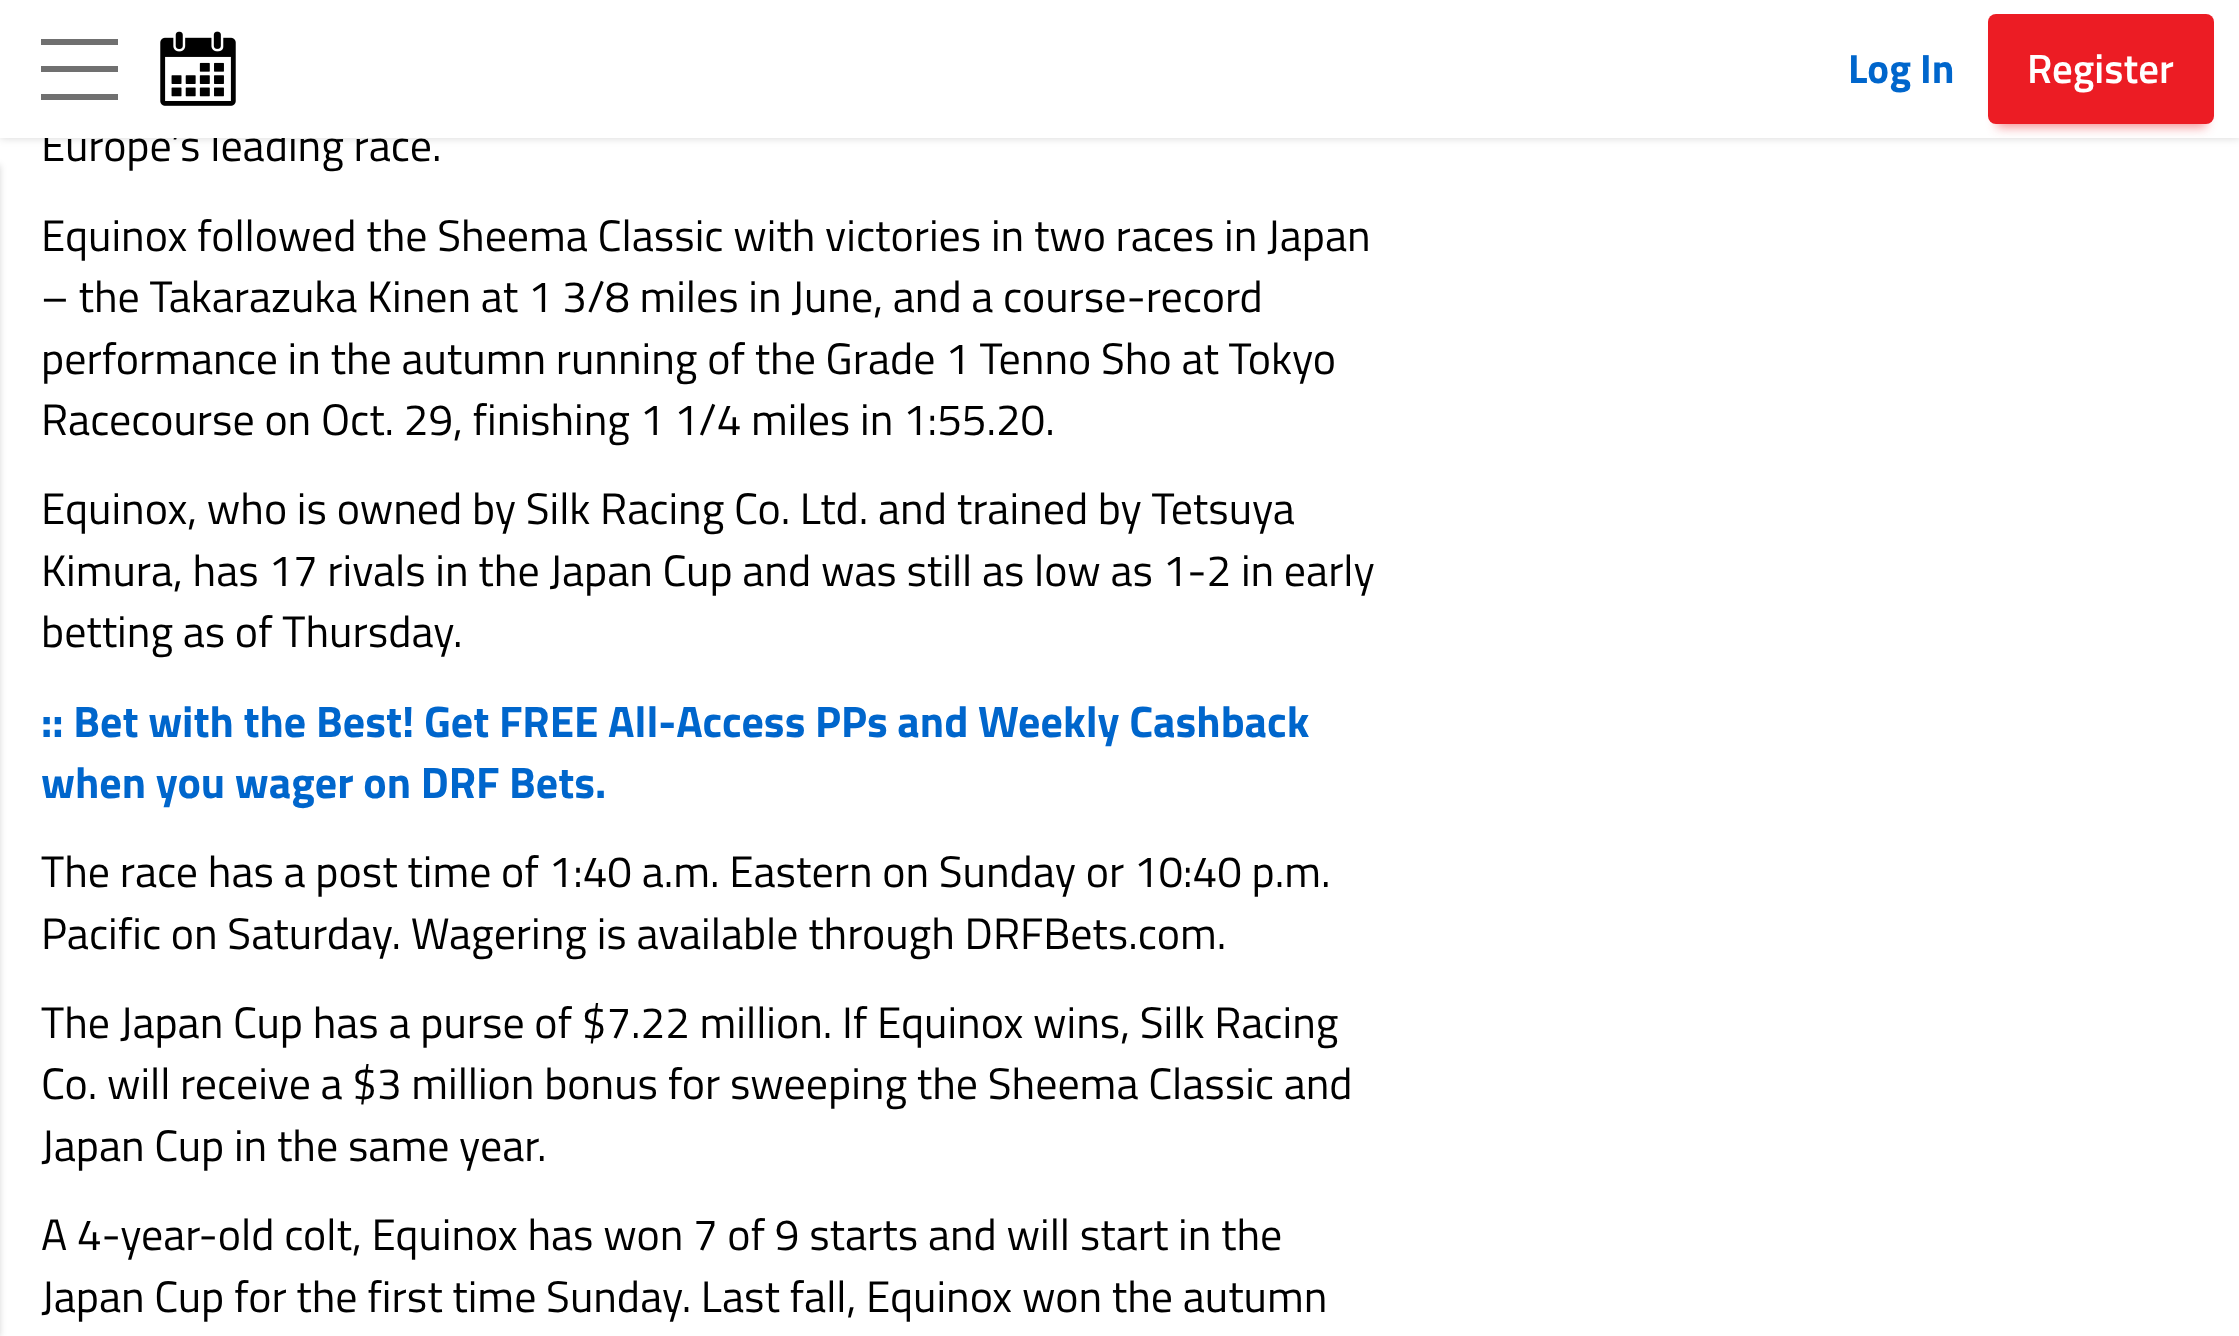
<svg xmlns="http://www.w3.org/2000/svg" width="2239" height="1336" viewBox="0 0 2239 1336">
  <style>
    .t1 { font: 44px Titillium Web; fill: #000; }
    .t2 { font: bold 41px Titillium Web; fill: #06c; }
    .t3 { font: 600 41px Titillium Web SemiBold; fill: #fff; }
    .t4 { font: bold 44px Titillium Web; fill: #06c; }
  </style>
  <rect width="100%" height="100%" fill="#fff"/>
  <rect x="0" y="0" width="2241" height="138" fill="#00000029" filter="blur(4px)"/>
  <text x="41" y="161" class="t1">Europe’s leading race.</text>
  <rect x="0" y="0" width="2239" height="138" fill="#fff"/>
  <rect x="41" y="66" width="77" height="6" fill="#707070"/>
  <rect x="41" y="39" width="77" height="6" fill="#707070"/>
  <rect x="41" y="94" width="77" height="6" fill="#707070"/>
  <image x="160" y="31" width="76" height="75" href="images/1.png"/>
  <text x="1848" y="83" class="t2">Log In</text>
  <rect x="1997" y="33" width="209" height="94" fill="#ec1c2480" filter="blur(5.5px)"/>
  <rect x="1988" y="14" width="226" height="110" rx="8" fill="#ec1c24"/>
  <text x="2027" y="83" class="t3">Register</text>
  <rect x="-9" y="165" width="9" height="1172" fill="#00000029" filter="blur(3px)"/>
  <text x="41" y="251" class="t1">Equinox followed the Sheema Classic with victories in two races in Japan</text>
  <text x="41" y="312" class="t1">– the Takarazuka Kinen at 1 3/8 miles in June, and a course-record</text>
  <text x="41" y="374" class="t1">performance in the autumn running of the Grade 1 Tenno Sho at Tokyo</text>
  <text x="41" y="435" class="t1">Racecourse on Oct. 29, finishing 1 1/4 miles in 1:55.20.</text>
  <text x="41" y="524" class="t1">Equinox, who is owned by Silk Racing Co. Ltd. and trained by Tetsuya</text>
  <text x="41" y="586" class="t1">Kimura, has 17 rivals in the Japan Cup and was still as low as 1-2 in early</text>
  <text x="41" y="647" class="t1">betting as of Thursday.</text>
  <text x="41" y="737" class="t4">:: Bet with the Best! Get FREE All-Access PPs and Weekly Cashback</text>
  <text x="41" y="798" class="t4">when you wager on DRF Bets.</text>
  <text x="41" y="887" class="t1">The race has a post time of 1:40 a.m. Eastern on Sunday or 10:40 p.m.</text>
  <text x="41" y="949" class="t1">Pacific on Saturday. Wagering is available through DRFBets.com.</text>
  <text x="41" y="1038" class="t1">The Japan Cup has a purse of $7.22 million. If Equinox wins, Silk Racing</text>
  <text x="41" y="1099" class="t1">Co. will receive a $3 million bonus for sweeping the Sheema Classic and</text>
  <text x="41" y="1161" class="t1">Japan Cup in the same year.</text>
  <text x="41" y="1250" class="t1">A 4-year-old colt, Equinox has won 7 of 9 starts and will start in the</text>
  <text x="41" y="1312" class="t1">Japan Cup for the first time Sunday. Last fall, Equinox won the autumn</text>
</svg>
